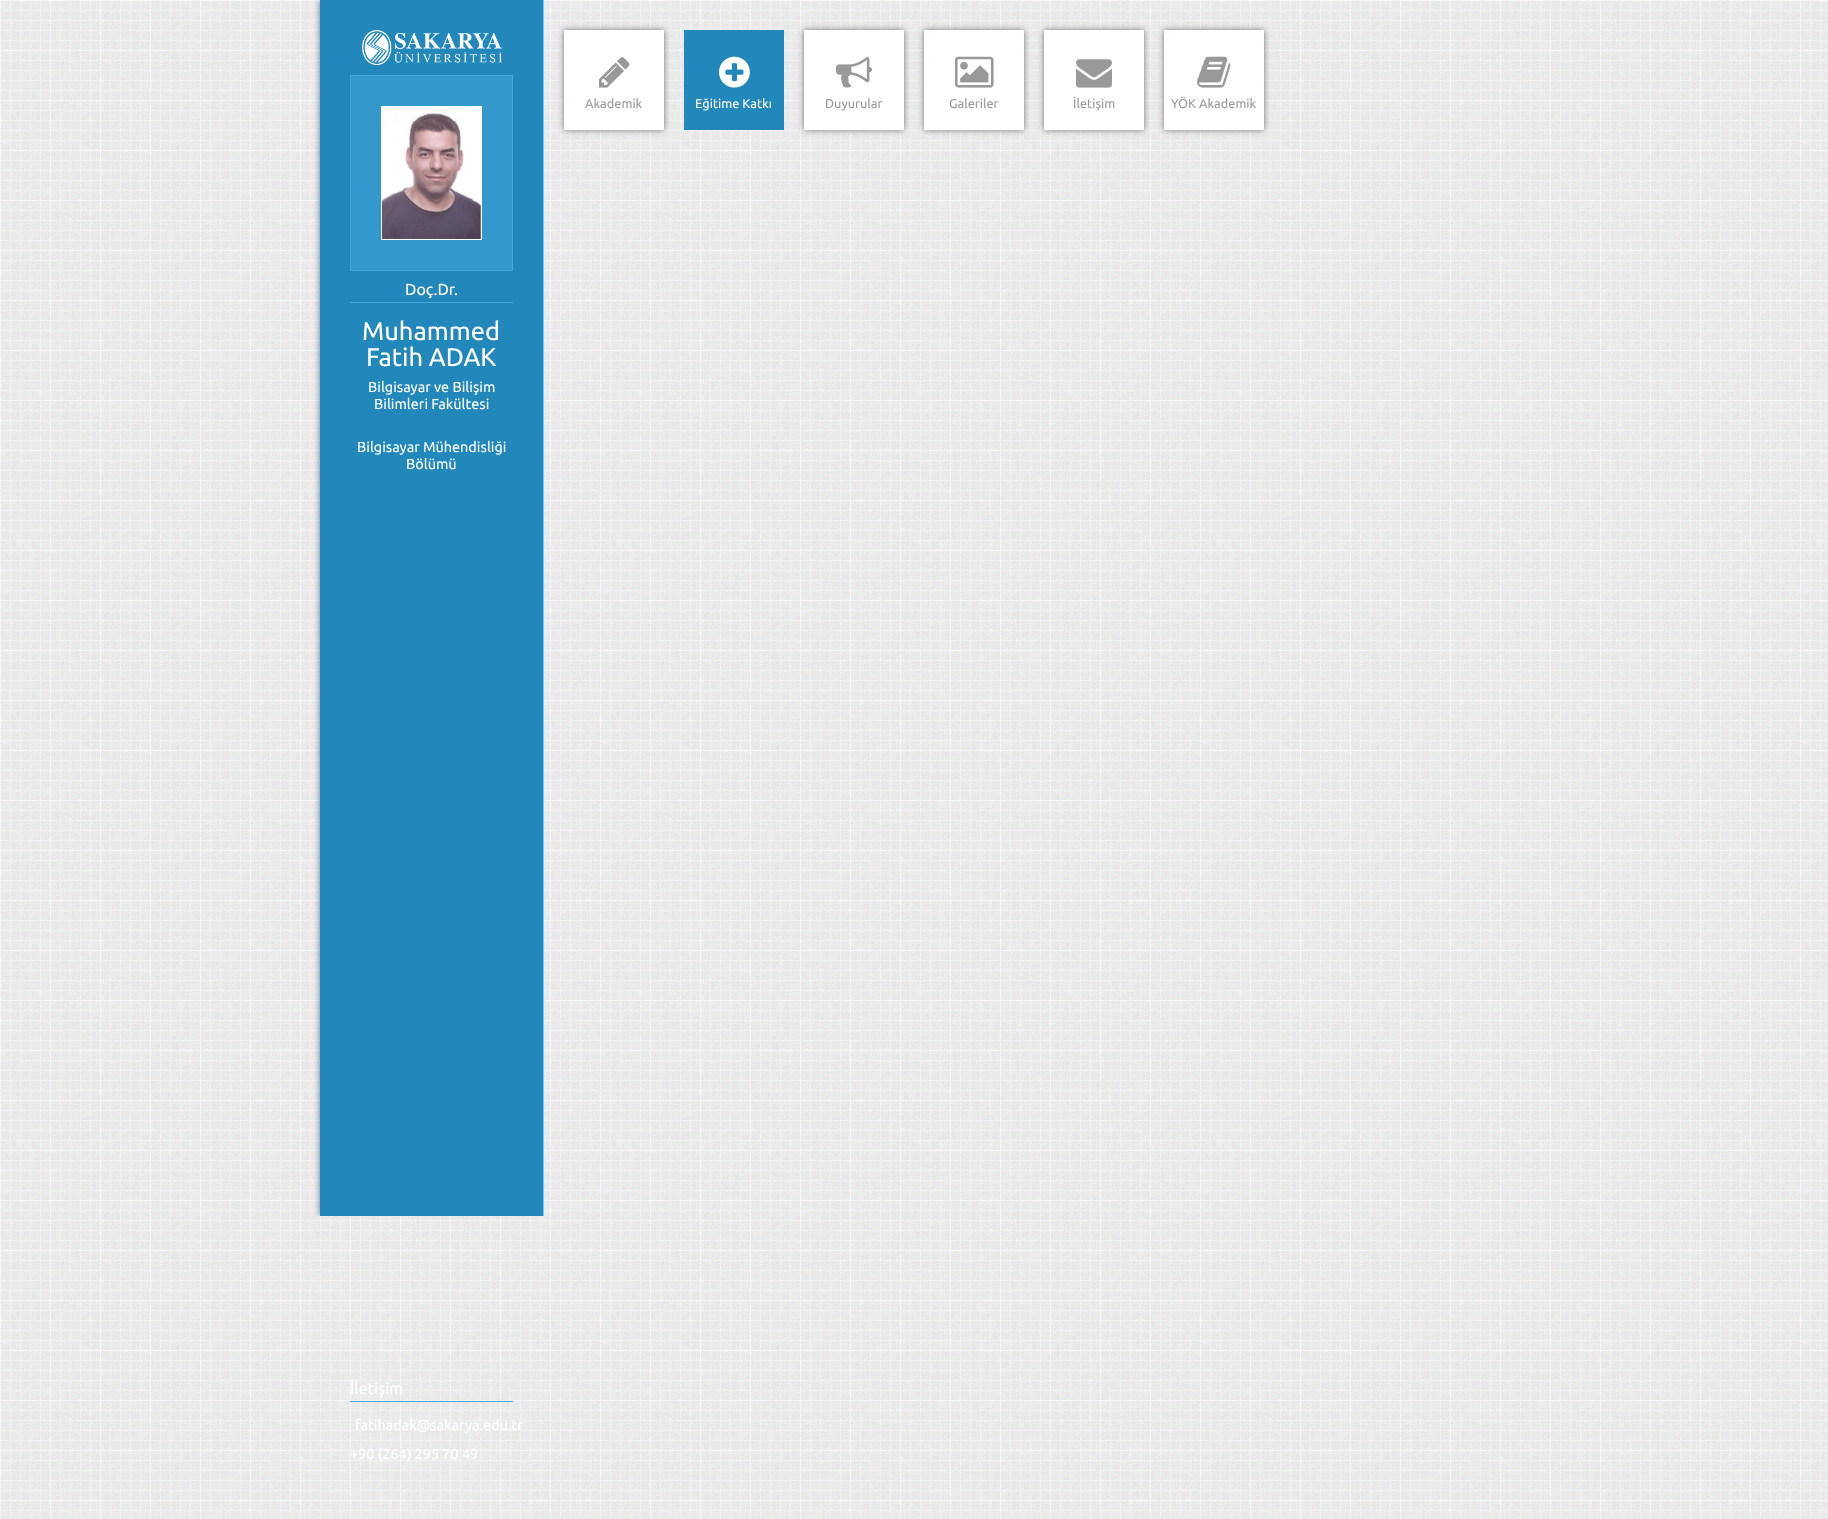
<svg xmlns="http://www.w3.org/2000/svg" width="1828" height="1519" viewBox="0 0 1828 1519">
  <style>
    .t1 { font: 12.75px Ubuntu; fill: #999; }
    .t2 { font: 12.75px Ubuntu; fill: #fff; }
    .t3 { font: 16px Ubuntu; fill: #fff; }
    .t4 { font: 25.5px Ubuntu; fill: #fff; }
    .t5 { font: 14.4px Ubuntu; fill: #fff; }
  </style>
  <defs>
    <clipPath id="clip1"><rect x="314" y="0" width="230" height="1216"/></clipPath>
  </defs>
  <rect width="100%" height="100%" fill="#fff"/>
  <image x="0" y="0" width="1828" height="1519" href="images/1.png"/>
  <rect x="564" y="30" width="100" height="100" fill="#00000080" filter="blur(3px)"/>
  <rect x="564" y="30" width="100" height="100" fill="#fff"/>
  <image x="599" y="57" width="31" height="31" href="images/2.png"/>
  <text x="585" y="108" class="t1">Akademik</text>
  <rect x="684" y="30" width="100" height="100" fill="#28b"/>
  <image x="719" y="56" width="31" height="32" href="images/3.png"/>
  <text x="695" y="108" class="t2">Eğitime Katkı</text>
  <rect x="804" y="30" width="100" height="100" fill="#00000080" filter="blur(3px)"/>
  <rect x="804" y="30" width="100" height="100" fill="#fff"/>
  <image x="836" y="56" width="36" height="32" href="images/4.png"/>
  <text x="825" y="108" class="t1">Duyurular</text>
  <rect x="924" y="30" width="100" height="100" fill="#00000080" filter="blur(3px)"/>
  <rect x="924" y="30" width="100" height="100" fill="#fff"/>
  <image x="955" y="56" width="39" height="32" href="images/5.png"/>
  <text x="949" y="108" class="t1">Galeriler</text>
  <rect x="1044" y="30" width="100" height="100" fill="#00000080" filter="blur(3px)"/>
  <rect x="1044" y="30" width="100" height="100" fill="#fff"/>
  <image x="1076" y="59" width="36" height="29" href="images/6.png"/>
  <text x="1073" y="108" class="t1">İletişim</text>
  <rect x="1164" y="30" width="100" height="100" fill="#00000080" filter="blur(3px)"/>
  <rect x="1164" y="30" width="100" height="100" fill="#fff"/>
  <image x="1197" y="56" width="34" height="32" href="images/7.png"/>
  <text x="1171" y="108" class="t1">YÖK Akademik</text>
  <g clip-path="url(#clip1)">
    <rect x="320" y="0" width="224" height="1216" fill="#00000080" filter="blur(3px)"/>
  </g>
  <rect x="320" y="0" width="223" height="1216" fill="#28b"/>
  <rect x="543" y="0" width="1" height="1216" fill="#6cf"/>
  <image x="362" y="30" width="140" height="35" href="images/8.png"/>
  <rect x="350.5" y="75.5" width="162" height="195" fill="#39c" stroke="#4ad"/>
  <rect x="381" y="106" width="101" height="134" fill="#fff"/>
  <image x="382" y="107" width="99" height="132" href="images/9.png"/>
  <rect x="350" y="302" width="163" height="1" fill="#4ad"/>
  <text x="405" y="295" class="t3">Doç.Dr.</text>
  <text x="362" y="340" class="t4">Muhammed</text>
  <text x="366" y="366" class="t4">Fatih ADAK</text>
  <text x="368" y="392" class="t5">Bilgisayar ve Bilişim</text>
  <text x="374" y="409" class="t5">Bilimleri Fakültesi</text>
  <text x="357" y="452" class="t5">Bilgisayar Mühendisliği</text>
  <text x="406" y="469" class="t5">Bölümü</text>
  <rect x="350" y="1401" width="163" height="1" fill="#4ad"/>
  <text x="350" y="1394" class="t3">İletişim</text>
  <text x="355" y="1430" class="t5">fatihadak@sakarya.edu.tr</text>
  <text x="350" y="1459" class="t5">+90 (264) 295 70 49</text>
</svg>
